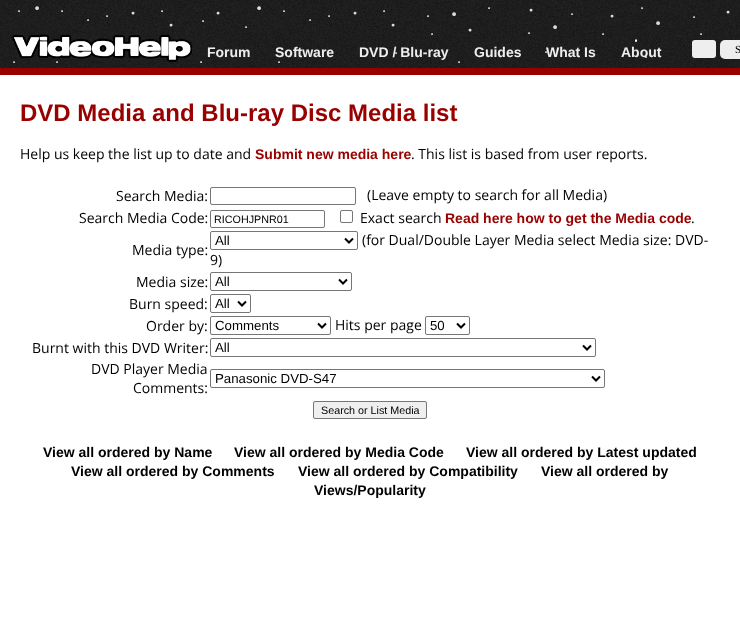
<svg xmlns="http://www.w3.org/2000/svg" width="740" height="618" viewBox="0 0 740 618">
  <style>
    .t1 { font: bold 14px Liberation Sans; fill: #eee; }
    .t2 { font: 11px Liberation Serif; fill: #000; }
    .t3 { font: bold 24px Liberation Sans; fill: #900; }
    .t4 { font: 14px Open Sans; fill: #000; }
    .t5 { font: bold 14px Liberation Sans; fill: #900; }
    .t6 { font: 10.75px Liberation Sans; fill: #000; }
    .t7 { font: 13.25px Liberation Sans; fill: #000; }
    .t8 { font: bold 14px Liberation Sans; fill: #000; }
  </style>
  <rect width="100%" height="100%" fill="#222"/>
  <image x="0" y="0" width="740" height="68" href="images/1.png"/>
  <rect x="0" y="68" width="740" height="7" fill="#900"/>
  <image x="12" y="34" width="180" height="28" href="images/2.png"/>
  <text x="207" y="57" class="t1">Forum</text>
  <text x="275" y="57" class="t1">Software</text>
  <text x="359" y="57" class="t1">DVD / Blu-ray</text>
  <text x="474" y="57" class="t1">Guides</text>
  <text x="546" y="57" class="t1">What Is</text>
  <text x="621" y="57" class="t1">About</text>
  <rect x="692" y="40" width="24" height="18" rx="3" fill="#eee"/>
  <rect x="720" y="40" width="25" height="19" rx="5" fill="#eee"/>
  <text x="735" y="53" class="t2">S</text>
  <rect x="0" y="75" width="740" height="543" fill="#fff"/>
  <text x="20" y="121" class="t3">DVD Media and Blu-ray Disc Media list</text>
  <text x="20" y="159" class="t4">Help us keep the list up to date and</text>
  <text x="255" y="159" class="t5">Submit new media here</text>
  <text x="411" y="159" class="t4">. This list is based from user reports.</text>
  <text x="116" y="201" class="t4">Search Media:</text>
  <rect x="210.5" y="187.5" width="145" height="17" rx="1.5" fill="none" stroke="#767676"/>
  <text x="367" y="200" class="t4">(Leave empty to search for all Media)</text>
  <text x="79" y="223" class="t4">Search Media Code:</text>
  <rect x="210.5" y="210.5" width="114" height="17" rx="1.5" fill="none" stroke="#767676"/>
  <text x="214" y="223" class="t6">RICOHJPNR01</text>
  <rect x="340.5" y="210.5" width="12" height="12" rx="1.5" fill="none" stroke="#767676"/>
  <text x="360" y="223" class="t4">Exact search</text>
  <text x="445" y="223" class="t5">Read here how to get the Media code</text>
  <text x="691" y="223" class="t4">.</text>
  <text x="132" y="255" class="t4">Media type:</text>
  <rect x="210.5" y="231.5" width="147" height="18" rx="1.5" fill="none" stroke="#767676"/>
  <path d="M345 238.5L349 242.5L353 238.5" fill="none" stroke="#000" stroke-width="2"/>
  <text x="215" y="245" class="t7">All</text>
  <text x="362" y="245" class="t4">(for Dual/Double Layer Media select Media size: DVD-</text>
  <text x="210" y="265" class="t4">9)</text>
  <text x="136" y="287" class="t4">Media size:</text>
  <rect x="210.5" y="272.5" width="141" height="18" rx="1.5" fill="none" stroke="#767676"/>
  <path d="M339 279.5L343 283.5L347 279.5" fill="none" stroke="#000" stroke-width="2"/>
  <text x="215" y="286" class="t7">All</text>
  <text x="129" y="309" class="t4">Burn speed:</text>
  <rect x="210.5" y="294.5" width="40" height="18" rx="1.5" fill="none" stroke="#767676"/>
  <path d="M238 301.5L242 305.5L246 301.5" fill="none" stroke="#000" stroke-width="2"/>
  <text x="215" y="308" class="t7">All</text>
  <text x="146" y="331" class="t4">Order by:</text>
  <rect x="210.5" y="316.5" width="120" height="18" rx="1.5" fill="none" stroke="#767676"/>
  <path d="M318 323.5L322 327.5L326 323.5" fill="none" stroke="#000" stroke-width="2"/>
  <text x="215" y="330" class="t7">Comments</text>
  <text x="335" y="330" class="t4">Hits per page</text>
  <rect x="425.5" y="316.5" width="44" height="18" rx="1.5" fill="none" stroke="#767676"/>
  <path d="M457 323.5L461 327.5L465 323.5" fill="none" stroke="#000" stroke-width="2"/>
  <text x="430" y="330" class="t7">50</text>
  <text x="32" y="353" class="t4">Burnt with this DVD Writer:</text>
  <rect x="210.5" y="338.5" width="385" height="18" rx="1.5" fill="none" stroke="#767676"/>
  <path d="M583 345.5L587 349.5L591 345.5" fill="none" stroke="#000" stroke-width="2"/>
  <text x="215" y="352" class="t7">All</text>
  <text x="91" y="374" class="t4">DVD Player Media</text>
  <text x="133" y="393" class="t4">Comments:</text>
  <rect x="210.5" y="369.5" width="394" height="18" rx="1.5" fill="none" stroke="#767676"/>
  <path d="M592 376.5L596 380.5L600 376.5" fill="none" stroke="#000" stroke-width="2"/>
  <text x="215" y="383" class="t7">Panasonic DVD-S47</text>
  <rect x="313.5" y="401.5" width="113" height="17" rx="1.5" fill="#efefef" stroke="#767676"/>
  <text x="321" y="414" class="t6">Search or List Media</text>
  <text x="43" y="457" class="t8">View all ordered by Name</text>
  <text x="234" y="457" class="t8">View all ordered by Media Code</text>
  <text x="466" y="457" class="t8">View all ordered by Latest updated</text>
  <text x="71" y="476" class="t8">View all ordered by Comments</text>
  <text x="298" y="476" class="t8">View all ordered by Compatibility</text>
  <text x="541" y="476" class="t8">View all ordered by</text>
  <text x="314" y="495" class="t8">Views/Popularity</text>
</svg>
